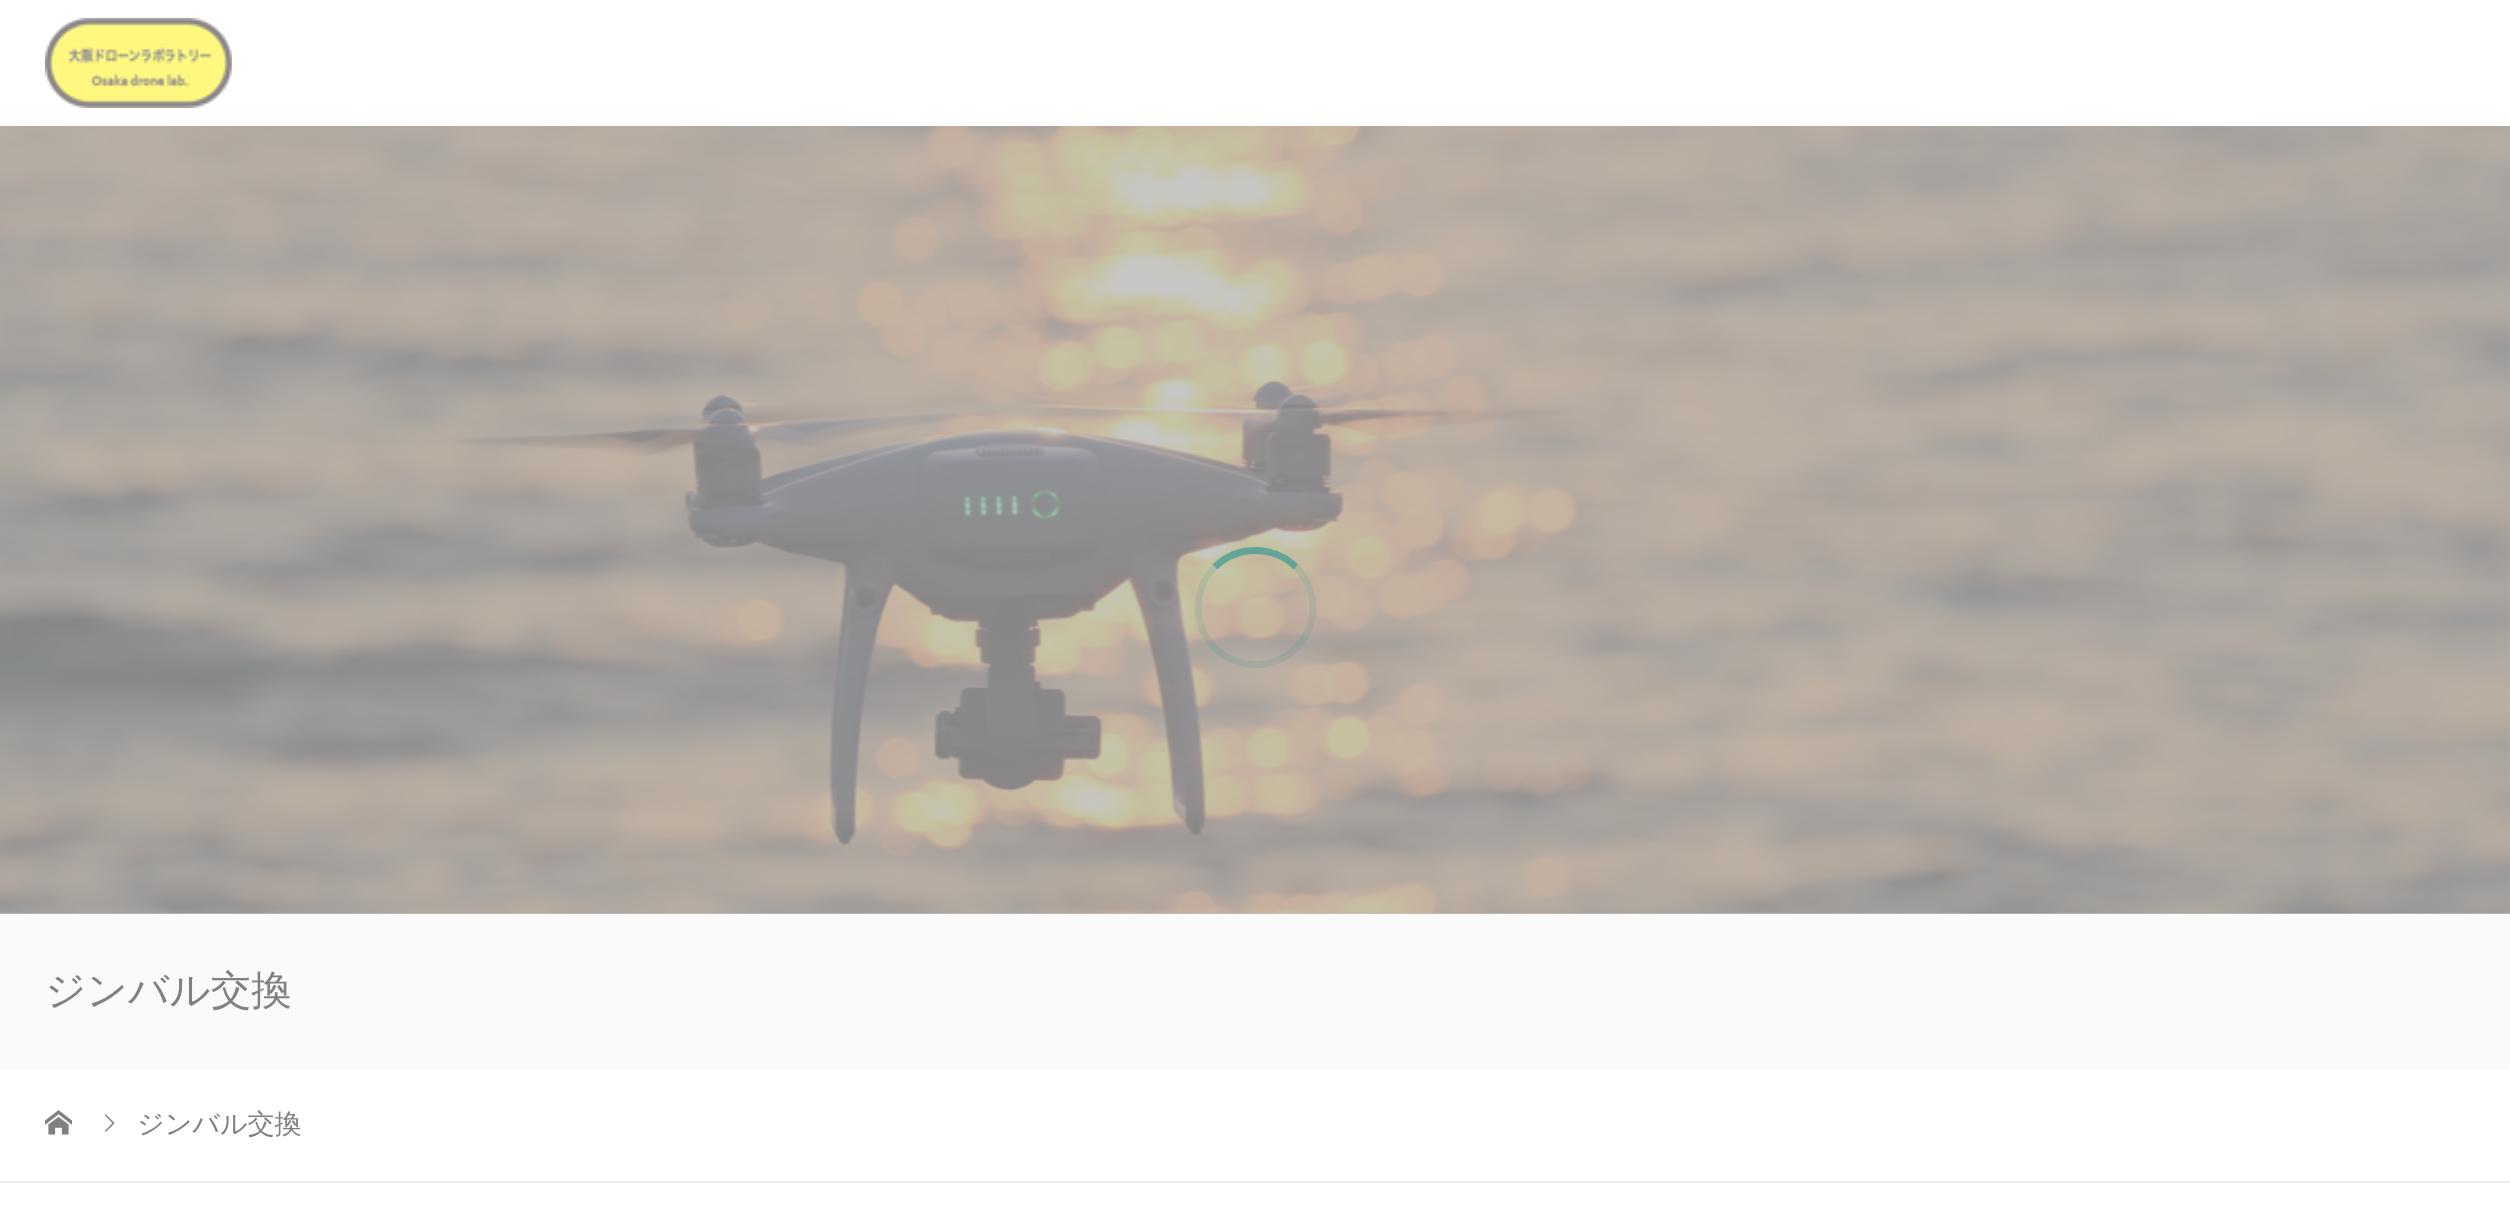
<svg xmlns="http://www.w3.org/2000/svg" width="2510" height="1214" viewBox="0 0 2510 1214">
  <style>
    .t1 { font: 500 40.5px WenQuanYi Zen Hei; fill: #808080; }
    .t2 { font: 500 27px WenQuanYi Zen Hei; fill: #808080; }
  </style>
  <rect width="100%" height="100%" fill="#fff"/>
  <rect x="0" y="126" width="2510" height="788" fill="#c7c7c7"/>
  <image x="0" y="126" width="2510" height="788" href="images/2.png"/>
  <path d="M1215 567C1237 545 1274 545 1296 567" fill="none" stroke="#008c8d80" stroke-width="6.8"/>
  <path d="M1296 567C1309.5 580.5 1315.5 600 1312 618.5C1309.5 630 1304 640 1296 648C1260 684 1198 658 1198 607.5C1198 592.5 1204 577.5 1215 567" fill="none" stroke="#008c8d1a" stroke-width="6.8"/>
  <image x="45" y="18" width="187" height="90" href="images/1.png"/>
  <rect x="0" y="914" width="2510" height="155" fill="#fafafa"/>
  <text x="45" y="1004" class="t1">ジンバル交換</text>
  <rect x="0" y="1181" width="2510" height="2" fill="#eee"/>
  <image x="45" y="1110" width="27" height="25" href="images/3.png"/>
  <image x="105" y="1114" width="10" height="18" href="images/4.png"/>
  <text x="137" y="1133" class="t2">ジンバル交換</text>
</svg>
